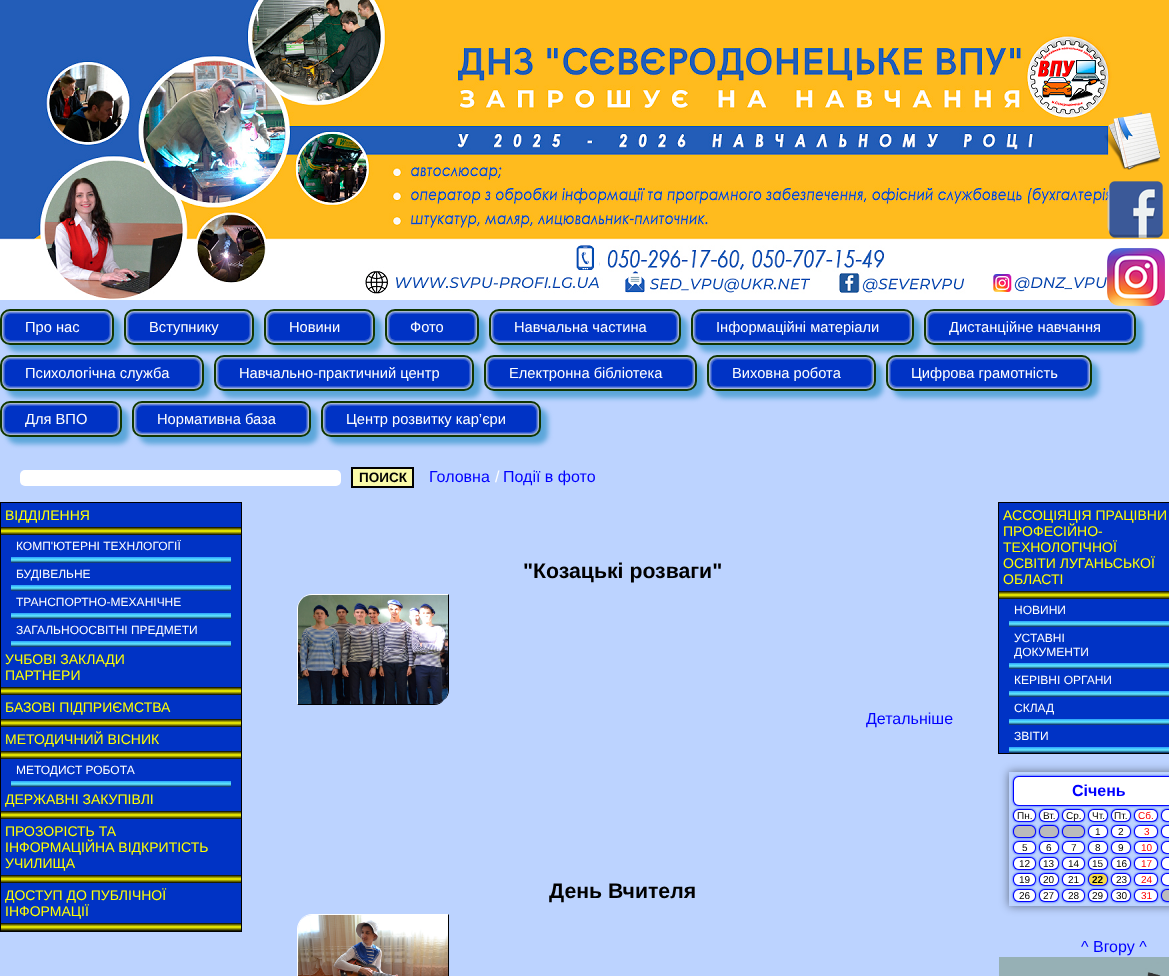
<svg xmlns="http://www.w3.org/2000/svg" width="1169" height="976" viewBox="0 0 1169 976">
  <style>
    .t1 { font: 14.7px Liberation Sans; fill: #fff; }
    .t2 { font: bold 13.5px Liberation Sans; fill: #000; }
    .t3 { font: 16px Liberation Sans; fill: #00f; }
    .t4 { font: 16px Liberation Sans; fill: #fff; }
    .t5 { font: 14px Liberation Sans; fill: #ff0; }
    .t6 { font: 12px Liberation Sans; fill: #fff; }
    .t7 { font: bold 21.25px Liberation Sans; fill: #000; }
    .t8 { font: bold 16px Liberation Sans; fill: #00f; }
    .t9 { font: 10px Liberation Sans; fill: #000; }
    .t10 { font: 10px Liberation Sans; fill: #f00; }
    .t11 { font: bold 10px Liberation Sans; fill: #000; }
  </style>
  <defs>
    <linearGradient id="g1" gradientUnits="userSpaceOnUse" x1="121" y1="527" x2="121" y2="535"><stop offset="0" stop-color="#000"/><stop offset="0.5" stop-color="#ff0"/><stop offset="1" stop-color="#000"/></linearGradient>
    <linearGradient id="g2" gradientUnits="userSpaceOnUse" x1="121" y1="557" x2="121" y2="563"><stop offset="0" stop-color="#29a0fa"/><stop offset="0.5" stop-color="#62ebff"/><stop offset="1" stop-color="#041e58"/></linearGradient>
    <linearGradient id="g3" gradientUnits="userSpaceOnUse" x1="121" y1="585" x2="121" y2="591"><stop offset="0" stop-color="#29a0fa"/><stop offset="0.5" stop-color="#62ebff"/><stop offset="1" stop-color="#041e58"/></linearGradient>
    <linearGradient id="g4" gradientUnits="userSpaceOnUse" x1="121" y1="613" x2="121" y2="619"><stop offset="0" stop-color="#29a0fa"/><stop offset="0.5" stop-color="#62ebff"/><stop offset="1" stop-color="#041e58"/></linearGradient>
    <linearGradient id="g5" gradientUnits="userSpaceOnUse" x1="121" y1="641" x2="121" y2="647"><stop offset="0" stop-color="#29a0fa"/><stop offset="0.5" stop-color="#62ebff"/><stop offset="1" stop-color="#041e58"/></linearGradient>
    <linearGradient id="g6" gradientUnits="userSpaceOnUse" x1="121" y1="687" x2="121" y2="695"><stop offset="0" stop-color="#000"/><stop offset="0.5" stop-color="#ff0"/><stop offset="1" stop-color="#000"/></linearGradient>
    <linearGradient id="g7" gradientUnits="userSpaceOnUse" x1="121" y1="719" x2="121" y2="727"><stop offset="0" stop-color="#000"/><stop offset="0.5" stop-color="#ff0"/><stop offset="1" stop-color="#000"/></linearGradient>
    <linearGradient id="g8" gradientUnits="userSpaceOnUse" x1="121" y1="751" x2="121" y2="759"><stop offset="0" stop-color="#000"/><stop offset="0.5" stop-color="#ff0"/><stop offset="1" stop-color="#000"/></linearGradient>
    <linearGradient id="g9" gradientUnits="userSpaceOnUse" x1="121" y1="781" x2="121" y2="787"><stop offset="0" stop-color="#29a0fa"/><stop offset="0.5" stop-color="#62ebff"/><stop offset="1" stop-color="#041e58"/></linearGradient>
    <linearGradient id="g10" gradientUnits="userSpaceOnUse" x1="121" y1="811" x2="121" y2="819"><stop offset="0" stop-color="#000"/><stop offset="0.5" stop-color="#ff0"/><stop offset="1" stop-color="#000"/></linearGradient>
    <linearGradient id="g11" gradientUnits="userSpaceOnUse" x1="121" y1="875" x2="121" y2="883"><stop offset="0" stop-color="#000"/><stop offset="0.5" stop-color="#ff0"/><stop offset="1" stop-color="#000"/></linearGradient>
    <linearGradient id="g12" gradientUnits="userSpaceOnUse" x1="121" y1="923" x2="121" y2="931"><stop offset="0" stop-color="#000"/><stop offset="0.5" stop-color="#ff0"/><stop offset="1" stop-color="#000"/></linearGradient>
    <linearGradient id="g13" gradientUnits="userSpaceOnUse" x1="1099" y1="591" x2="1099" y2="599"><stop offset="0" stop-color="#000"/><stop offset="0.5" stop-color="#ff0"/><stop offset="1" stop-color="#000"/></linearGradient>
    <linearGradient id="g14" gradientUnits="userSpaceOnUse" x1="1099" y1="621" x2="1099" y2="627"><stop offset="0" stop-color="#29a0fa"/><stop offset="0.5" stop-color="#62ebff"/><stop offset="1" stop-color="#041e58"/></linearGradient>
    <linearGradient id="g15" gradientUnits="userSpaceOnUse" x1="1099" y1="663" x2="1099" y2="669"><stop offset="0" stop-color="#29a0fa"/><stop offset="0.5" stop-color="#62ebff"/><stop offset="1" stop-color="#041e58"/></linearGradient>
    <linearGradient id="g16" gradientUnits="userSpaceOnUse" x1="1099" y1="691" x2="1099" y2="697"><stop offset="0" stop-color="#29a0fa"/><stop offset="0.5" stop-color="#62ebff"/><stop offset="1" stop-color="#041e58"/></linearGradient>
    <linearGradient id="g17" gradientUnits="userSpaceOnUse" x1="1099" y1="719" x2="1099" y2="725"><stop offset="0" stop-color="#29a0fa"/><stop offset="0.5" stop-color="#62ebff"/><stop offset="1" stop-color="#041e58"/></linearGradient>
    <linearGradient id="g18" gradientUnits="userSpaceOnUse" x1="1099" y1="747" x2="1099" y2="753"><stop offset="0" stop-color="#29a0fa"/><stop offset="0.5" stop-color="#62ebff"/><stop offset="1" stop-color="#041e58"/></linearGradient>
    <clipPath id="clip1"><path d="M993 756H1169V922H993ZM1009 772H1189V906H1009Z" clip-rule="evenodd"/></clipPath>
  </defs>
  <rect width="100%" height="100%" fill="#bcd3ff"/>
  <image x="0" y="0" width="1169" height="300" href="images/4.png"/>
  <image x="1104" y="112" width="57" height="58" href="images/1.png"/>
  <image x="1107" y="181" width="56" height="57" href="images/2.png"/>
  <image x="1107" y="248" width="58" height="58" href="images/3.png"/>
  <rect x="7" y="316" width="114" height="36" rx="10" fill="#5ca6da" filter="blur(2.5px)"/>
  <rect x="2.5" y="311.5" width="109" height="31" rx="7.5" fill="none" stroke="#103600" stroke-width="5"/>
  <rect x="3.5" y="312.5" width="107" height="29" rx="6.5" fill="none" stroke="#a6b6d0" stroke-width="3"/>
  <rect x="4" y="313" width="106" height="28" rx="6" fill="none" stroke="#6685dc" stroke-width="2"/>
  <rect x="4.5" y="313.5" width="105" height="27" rx="5.5" fill="none" stroke="#3059d0"/>
  <rect x="5" y="314" width="104" height="26" rx="5" fill="#0033c5"/>
  <text x="25" y="332" class="t1">Про нас</text>
  <rect x="131" y="316" width="130" height="36" rx="10" fill="#5ca6da" filter="blur(2.5px)"/>
  <rect x="126.5" y="311.5" width="125" height="31" rx="7.5" fill="none" stroke="#103600" stroke-width="5"/>
  <rect x="127.5" y="312.5" width="123" height="29" rx="6.5" fill="none" stroke="#a6b6d0" stroke-width="3"/>
  <rect x="128" y="313" width="122" height="28" rx="6" fill="none" stroke="#6685dc" stroke-width="2"/>
  <rect x="128.5" y="313.5" width="121" height="27" rx="5.5" fill="none" stroke="#3059d0"/>
  <rect x="129" y="314" width="120" height="26" rx="5" fill="#0033c5"/>
  <text x="149" y="332" class="t1">Вступнику</text>
  <rect x="271" y="316" width="111" height="36" rx="10" fill="#5ca6da" filter="blur(2.5px)"/>
  <rect x="266.5" y="311.5" width="106" height="31" rx="7.5" fill="none" stroke="#103600" stroke-width="5"/>
  <rect x="267.5" y="312.5" width="104" height="29" rx="6.5" fill="none" stroke="#a6b6d0" stroke-width="3"/>
  <rect x="268" y="313" width="103" height="28" rx="6" fill="none" stroke="#6685dc" stroke-width="2"/>
  <rect x="268.5" y="313.5" width="102" height="27" rx="5.5" fill="none" stroke="#3059d0"/>
  <rect x="269" y="314" width="101" height="26" rx="5" fill="#0033c5"/>
  <text x="289" y="332" class="t1">Новини</text>
  <rect x="392" y="316" width="94" height="36" rx="10" fill="#5ca6da" filter="blur(2.5px)"/>
  <rect x="387.5" y="311.5" width="89" height="31" rx="7.5" fill="none" stroke="#103600" stroke-width="5"/>
  <rect x="388.5" y="312.5" width="87" height="29" rx="6.5" fill="none" stroke="#a6b6d0" stroke-width="3"/>
  <rect x="389" y="313" width="86" height="28" rx="6" fill="none" stroke="#6685dc" stroke-width="2"/>
  <rect x="389.5" y="313.5" width="85" height="27" rx="5.5" fill="none" stroke="#3059d0"/>
  <rect x="390" y="314" width="84" height="26" rx="5" fill="#0033c5"/>
  <text x="410" y="332" class="t1">Фото</text>
  <rect x="496" y="316" width="192" height="36" rx="10" fill="#5ca6da" filter="blur(2.5px)"/>
  <rect x="491.5" y="311.5" width="187" height="31" rx="7.5" fill="none" stroke="#103600" stroke-width="5"/>
  <rect x="492.5" y="312.5" width="185" height="29" rx="6.5" fill="none" stroke="#a6b6d0" stroke-width="3"/>
  <rect x="493" y="313" width="184" height="28" rx="6" fill="none" stroke="#6685dc" stroke-width="2"/>
  <rect x="493.5" y="313.5" width="183" height="27" rx="5.5" fill="none" stroke="#3059d0"/>
  <rect x="494" y="314" width="182" height="26" rx="5" fill="#0033c5"/>
  <text x="514" y="332" class="t1">Навчальна частина</text>
  <rect x="698" y="316" width="223" height="36" rx="10" fill="#5ca6da" filter="blur(2.5px)"/>
  <rect x="693.5" y="311.5" width="218" height="31" rx="7.5" fill="none" stroke="#103600" stroke-width="5"/>
  <rect x="694.5" y="312.5" width="216" height="29" rx="6.5" fill="none" stroke="#a6b6d0" stroke-width="3"/>
  <rect x="695" y="313" width="215" height="28" rx="6" fill="none" stroke="#6685dc" stroke-width="2"/>
  <rect x="695.5" y="313.5" width="214" height="27" rx="5.5" fill="none" stroke="#3059d0"/>
  <rect x="696" y="314" width="213" height="26" rx="5" fill="#0033c5"/>
  <text x="716" y="332" class="t1">Iнформаційні матеріали</text>
  <rect x="931" y="316" width="212" height="36" rx="10" fill="#5ca6da" filter="blur(2.5px)"/>
  <rect x="926.5" y="311.5" width="207" height="31" rx="7.5" fill="none" stroke="#103600" stroke-width="5"/>
  <rect x="927.5" y="312.5" width="205" height="29" rx="6.5" fill="none" stroke="#a6b6d0" stroke-width="3"/>
  <rect x="928" y="313" width="204" height="28" rx="6" fill="none" stroke="#6685dc" stroke-width="2"/>
  <rect x="928.5" y="313.5" width="203" height="27" rx="5.5" fill="none" stroke="#3059d0"/>
  <rect x="929" y="314" width="202" height="26" rx="5" fill="#0033c5"/>
  <text x="949" y="332" class="t1">Дистанційне навчання</text>
  <rect x="7" y="362" width="204" height="36" rx="10" fill="#5ca6da" filter="blur(2.5px)"/>
  <rect x="2.5" y="357.5" width="199" height="31" rx="7.5" fill="none" stroke="#103600" stroke-width="5"/>
  <rect x="3.5" y="358.5" width="197" height="29" rx="6.5" fill="none" stroke="#a6b6d0" stroke-width="3"/>
  <rect x="4" y="359" width="196" height="28" rx="6" fill="none" stroke="#6685dc" stroke-width="2"/>
  <rect x="4.5" y="359.5" width="195" height="27" rx="5.5" fill="none" stroke="#3059d0"/>
  <rect x="5" y="360" width="194" height="26" rx="5" fill="#0033c5"/>
  <text x="25" y="378" class="t1">Психологічна служба</text>
  <rect x="221" y="362" width="260" height="36" rx="10" fill="#5ca6da" filter="blur(2.5px)"/>
  <rect x="216.5" y="357.5" width="255" height="31" rx="7.5" fill="none" stroke="#103600" stroke-width="5"/>
  <rect x="217.5" y="358.5" width="253" height="29" rx="6.5" fill="none" stroke="#a6b6d0" stroke-width="3"/>
  <rect x="218" y="359" width="252" height="28" rx="6" fill="none" stroke="#6685dc" stroke-width="2"/>
  <rect x="218.5" y="359.5" width="251" height="27" rx="5.5" fill="none" stroke="#3059d0"/>
  <rect x="219" y="360" width="250" height="26" rx="5" fill="#0033c5"/>
  <text x="239" y="378" class="t1">Навчально-практичний центр</text>
  <rect x="491" y="362" width="213" height="36" rx="10" fill="#5ca6da" filter="blur(2.5px)"/>
  <rect x="486.5" y="357.5" width="208" height="31" rx="7.5" fill="none" stroke="#103600" stroke-width="5"/>
  <rect x="487.5" y="358.5" width="206" height="29" rx="6.5" fill="none" stroke="#a6b6d0" stroke-width="3"/>
  <rect x="488" y="359" width="205" height="28" rx="6" fill="none" stroke="#6685dc" stroke-width="2"/>
  <rect x="488.5" y="359.5" width="204" height="27" rx="5.5" fill="none" stroke="#3059d0"/>
  <rect x="489" y="360" width="203" height="26" rx="5" fill="#0033c5"/>
  <text x="509" y="378" class="t1">Електронна бібліотека</text>
  <rect x="714" y="362" width="169" height="36" rx="10" fill="#5ca6da" filter="blur(2.5px)"/>
  <rect x="709.5" y="357.5" width="164" height="31" rx="7.5" fill="none" stroke="#103600" stroke-width="5"/>
  <rect x="710.5" y="358.5" width="162" height="29" rx="6.5" fill="none" stroke="#a6b6d0" stroke-width="3"/>
  <rect x="711" y="359" width="161" height="28" rx="6" fill="none" stroke="#6685dc" stroke-width="2"/>
  <rect x="711.5" y="359.5" width="160" height="27" rx="5.5" fill="none" stroke="#3059d0"/>
  <rect x="712" y="360" width="159" height="26" rx="5" fill="#0033c5"/>
  <text x="732" y="378" class="t1">Виховна робота</text>
  <rect x="893" y="362" width="206" height="36" rx="10" fill="#5ca6da" filter="blur(2.5px)"/>
  <rect x="888.5" y="357.5" width="201" height="31" rx="7.5" fill="none" stroke="#103600" stroke-width="5"/>
  <rect x="889.5" y="358.5" width="199" height="29" rx="6.5" fill="none" stroke="#a6b6d0" stroke-width="3"/>
  <rect x="890" y="359" width="198" height="28" rx="6" fill="none" stroke="#6685dc" stroke-width="2"/>
  <rect x="890.5" y="359.5" width="197" height="27" rx="5.5" fill="none" stroke="#3059d0"/>
  <rect x="891" y="360" width="196" height="26" rx="5" fill="#0033c5"/>
  <text x="911" y="378" class="t1">Цифрова грамотність</text>
  <rect x="7" y="408" width="122" height="36" rx="10" fill="#5ca6da" filter="blur(2.5px)"/>
  <rect x="2.5" y="403.5" width="117" height="31" rx="7.5" fill="none" stroke="#103600" stroke-width="5"/>
  <rect x="3.5" y="404.5" width="115" height="29" rx="6.5" fill="none" stroke="#a6b6d0" stroke-width="3"/>
  <rect x="4" y="405" width="114" height="28" rx="6" fill="none" stroke="#6685dc" stroke-width="2"/>
  <rect x="4.5" y="405.5" width="113" height="27" rx="5.5" fill="none" stroke="#3059d0"/>
  <rect x="5" y="406" width="112" height="26" rx="5" fill="#0033c5"/>
  <text x="25" y="424" class="t1">Для ВПО</text>
  <rect x="139" y="408" width="179" height="36" rx="10" fill="#5ca6da" filter="blur(2.5px)"/>
  <rect x="134.5" y="403.5" width="174" height="31" rx="7.5" fill="none" stroke="#103600" stroke-width="5"/>
  <rect x="135.5" y="404.5" width="172" height="29" rx="6.5" fill="none" stroke="#a6b6d0" stroke-width="3"/>
  <rect x="136" y="405" width="171" height="28" rx="6" fill="none" stroke="#6685dc" stroke-width="2"/>
  <rect x="136.5" y="405.5" width="170" height="27" rx="5.5" fill="none" stroke="#3059d0"/>
  <rect x="137" y="406" width="169" height="26" rx="5" fill="#0033c5"/>
  <text x="157" y="424" class="t1">Нормативна база</text>
  <rect x="328" y="408" width="220" height="36" rx="10" fill="#5ca6da" filter="blur(2.5px)"/>
  <rect x="323.5" y="403.5" width="215" height="31" rx="7.5" fill="none" stroke="#103600" stroke-width="5"/>
  <rect x="324.5" y="404.5" width="213" height="29" rx="6.5" fill="none" stroke="#a6b6d0" stroke-width="3"/>
  <rect x="325" y="405" width="212" height="28" rx="6" fill="none" stroke="#6685dc" stroke-width="2"/>
  <rect x="325.5" y="405.5" width="211" height="27" rx="5.5" fill="none" stroke="#3059d0"/>
  <rect x="326" y="406" width="210" height="26" rx="5" fill="#0033c5"/>
  <text x="346" y="424" class="t1">Центр розвитку кар’єри</text>
  <rect x="20" y="470" width="321" height="16" rx="5" fill="#fff"/>
  <rect x="352" y="468" width="61" height="19" fill="#fafaa9" stroke="#000" stroke-width="2"/>
  <text x="359" y="482" class="t2">ПОИСК</text>
  <text x="429" y="482" class="t3">Головна</text>
  <text x="495" y="482" class="t4">/</text>
  <text x="503" y="482" class="t3">Події в фото</text>
  <rect x="1" y="503" width="240" height="420" fill="#0033c5"/>
  <rect x="0.5" y="502.5" width="241" height="429" fill="none" stroke="#000"/>
  <text x="5" y="520" class="t5">ВІДДІЛЕННЯ</text>
  <rect x="1" y="527" width="240" height="8" fill="url(#g1)"/>
  <text x="16" y="550" class="t6">КОМП'ЮТЕРНІ ТЕХНЛОГОГІЇ</text>
  <rect x="11" y="557" width="220" height="6" fill="url(#g2)"/>
  <text x="16" y="578" class="t6">БУДІВЕЛЬНЕ</text>
  <rect x="11" y="585" width="220" height="6" fill="url(#g3)"/>
  <text x="16" y="606" class="t6">ТРАНСПОРТНО-МЕХАНІЧНЕ</text>
  <rect x="11" y="613" width="220" height="6" fill="url(#g4)"/>
  <text x="16" y="634" class="t6">ЗАГАЛЬНООСВІТНІ ПРЕДМЕТИ</text>
  <rect x="11" y="641" width="220" height="6" fill="url(#g5)"/>
  <text x="5" y="664" class="t5">УЧБОВІ ЗАКЛАДИ</text>
  <text x="5" y="680" class="t5">ПАРТНЕРИ</text>
  <rect x="1" y="687" width="240" height="8" fill="url(#g6)"/>
  <text x="5" y="712" class="t5">БАЗОВІ ПІДПРИЄМСТВА</text>
  <rect x="1" y="719" width="240" height="8" fill="url(#g7)"/>
  <text x="5" y="744" class="t5">МЕТОДИЧНИЙ ВІСНИК</text>
  <rect x="1" y="751" width="240" height="8" fill="url(#g8)"/>
  <text x="16" y="774" class="t6">МЕТОДИСТ РОБОТА</text>
  <rect x="11" y="781" width="220" height="6" fill="url(#g9)"/>
  <text x="5" y="804" class="t5">ДЕРЖАВНІ ЗАКУПІВЛІ</text>
  <rect x="1" y="811" width="240" height="8" fill="url(#g10)"/>
  <text x="5" y="836" class="t5">ПРОЗОРІСТЬ ТА</text>
  <text x="5" y="852" class="t5">ІНФОРМАЦІЙНА ВІДКРИТІСТЬ</text>
  <text x="5" y="868" class="t5">УЧИЛИЩА</text>
  <rect x="1" y="875" width="240" height="8" fill="url(#g11)"/>
  <text x="5" y="900" class="t5">ДОСТУП ДО ПУБЛІЧНОЇ</text>
  <text x="5" y="916" class="t5">ІНФОРМАЦІЇ</text>
  <rect x="1" y="923" width="240" height="8" fill="url(#g12)"/>
  <text x="523" y="578" class="t7">"Козацькі розваги"</text>
  <path d="M312 594C308 594 304 596 302 598V599C304 596 308 595 312 595H448L449 594Z" fill="#fff"/>
  <path d="M449 594L448 595V690C448 694 446 698 444 700C447 698 449 694 449 690Z" fill="#000"/>
  <path d="M434 705C438 705 442 703 444 700C442 702 438 704 434 704H298L297 705Z" fill="#000"/>
  <path d="M297 705L298 704V609C298 605 300 602 302 599V598C299 601 297 605 297 609Z" fill="#fff"/>
  <image x="298" y="595" width="150" height="109" href="images/5.png"/>
  <text x="866" y="724" class="t3">Детальніше</text>
  <text x="549" y="898" class="t7">День Вчителя</text>
  <path d="M312 914C308 914 304 916 302 918V919C304 916 308 915 312 915H448L449 914Z" fill="#fff"/>
  <path d="M449 914L448 915V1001C448 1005 446 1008 444 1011V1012C447 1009 449 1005 449 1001Z" fill="#000"/>
  <path d="M297 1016L298 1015V929C298 925 300 922 302 919V918C299 921 297 925 297 929Z" fill="#fff"/>
  <image x="298" y="915" width="150" height="61" href="images/6.png"/>
  <rect x="998.5" y="502.5" width="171" height="251" fill="#0033c5" stroke="#000"/>
  <text x="1003" y="520" class="t5">АССОЦІЯЦІЯ ПРАЦІВНИ</text>
  <text x="1003" y="536" class="t5">ПРОФЕСІЙНО-</text>
  <text x="1003" y="552" class="t5">ТЕХНОЛОГІЧНОЇ</text>
  <text x="1003" y="568" class="t5">ОСВІТИ ЛУГАНЬСЬКОЇ</text>
  <text x="1003" y="584" class="t5">ОБЛАСТІ</text>
  <rect x="999" y="591" width="170" height="8" fill="url(#g13)"/>
  <text x="1014" y="614" class="t6">НОВИНИ</text>
  <rect x="1009" y="621" width="160" height="6" fill="url(#g14)"/>
  <text x="1014" y="642" class="t6">УСТАВНІ</text>
  <text x="1014" y="656" class="t6">ДОКУМЕНТИ</text>
  <rect x="1009" y="663" width="160" height="6" fill="url(#g15)"/>
  <text x="1014" y="684" class="t6">КЕРІВНІ ОРГАНИ</text>
  <rect x="1009" y="691" width="160" height="6" fill="url(#g16)"/>
  <text x="1014" y="712" class="t6">СКЛАД</text>
  <rect x="1009" y="719" width="160" height="6" fill="url(#g17)"/>
  <text x="1014" y="740" class="t6">ЗВІТИ</text>
  <rect x="1009" y="747" width="160" height="6" fill="url(#g18)"/>
  <g clip-path="url(#clip1)">
    <rect x="1009" y="772" width="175" height="134" fill="#00000080" filter="blur(5px)"/>
  </g>
  <rect x="1013" y="776" width="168" height="30" rx="6" fill="#dae7fd" filter="blur(2px)"/>
  <rect x="1013" y="776" width="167" height="30" rx="6" fill="#94b8f9" filter="blur(1.5px)"/>
  <rect x="1013" y="776" width="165" height="30" rx="6" fill="#1c41ff" filter="blur(1px)"/>
  <rect x="1013" y="776" width="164" height="30" rx="6" fill="#00f" filter="blur(0.5px)"/>
  <rect x="1014" y="777" width="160" height="28" rx="5" fill="#fff"/>
  <text x="1072" y="796" class="t8">Січень</text>
  <rect x="1013" y="809" width="23" height="13" rx="6" fill="#dae7fd" filter="blur(2px)"/>
  <rect x="1013" y="809" width="23" height="13" rx="6" fill="#94b8f9" filter="blur(1.5px)"/>
  <rect x="1013" y="809" width="23" height="13" rx="6" fill="#1c41ff" filter="blur(1px)"/>
  <rect x="1013" y="809" width="23" height="13" rx="6" fill="#00f" filter="blur(0.5px)"/>
  <rect x="1014" y="810" width="21" height="11" rx="5" fill="#fff"/>
  <rect x="1039" y="809" width="20" height="13" rx="6" fill="#dae7fd" filter="blur(2px)"/>
  <rect x="1039" y="809" width="20" height="13" rx="6" fill="#94b8f9" filter="blur(1.5px)"/>
  <rect x="1039" y="809" width="20" height="13" rx="6" fill="#1c41ff" filter="blur(1px)"/>
  <rect x="1039" y="809" width="20" height="13" rx="6" fill="#00f" filter="blur(0.5px)"/>
  <rect x="1040" y="810" width="18" height="11" rx="5" fill="#fff"/>
  <rect x="1013" y="825" width="23" height="13" rx="6" fill="#dae7fd" filter="blur(2px)"/>
  <text x="1017" y="819" class="t9">Пн.</text>
  <rect x="1062" y="809" width="23" height="13" rx="6" fill="#dae7fd" filter="blur(2px)"/>
  <rect x="1062" y="809" width="23" height="13" rx="6" fill="#94b8f9" filter="blur(1.5px)"/>
  <rect x="1062" y="809" width="23" height="13" rx="6" fill="#1c41ff" filter="blur(1px)"/>
  <rect x="1062" y="809" width="23" height="13" rx="6" fill="#00f" filter="blur(0.5px)"/>
  <rect x="1063" y="810" width="21" height="11" rx="5" fill="#fff"/>
  <rect x="1013" y="825" width="23" height="13" rx="6" fill="#94b8f9" filter="blur(1.5px)"/>
  <rect x="1013" y="825" width="23" height="13" rx="6" fill="#1c41ff" filter="blur(1px)"/>
  <rect x="1013" y="825" width="23" height="13" rx="6" fill="#00f" filter="blur(0.5px)"/>
  <rect x="1014" y="826" width="21" height="11" rx="5" fill="#bbb"/>
  <rect x="1039" y="825" width="20" height="13" rx="6" fill="#dae7fd" filter="blur(2px)"/>
  <text x="1043" y="819" class="t9">Вт.</text>
  <rect x="1088" y="809" width="20" height="13" rx="6" fill="#dae7fd" filter="blur(2px)"/>
  <rect x="1088" y="809" width="20" height="13" rx="6" fill="#94b8f9" filter="blur(1.5px)"/>
  <rect x="1088" y="809" width="20" height="13" rx="6" fill="#1c41ff" filter="blur(1px)"/>
  <rect x="1088" y="809" width="20" height="13" rx="6" fill="#00f" filter="blur(0.5px)"/>
  <rect x="1089" y="810" width="18" height="11" rx="5" fill="#fff"/>
  <rect x="1039" y="825" width="20" height="13" rx="6" fill="#94b8f9" filter="blur(1.5px)"/>
  <rect x="1039" y="825" width="20" height="13" rx="6" fill="#1c41ff" filter="blur(1px)"/>
  <rect x="1039" y="825" width="20" height="13" rx="6" fill="#00f" filter="blur(0.5px)"/>
  <rect x="1040" y="826" width="18" height="11" rx="5" fill="#bbb"/>
  <rect x="1062" y="825" width="23" height="13" rx="6" fill="#dae7fd" filter="blur(2px)"/>
  <rect x="1062" y="825" width="23" height="13" rx="6" fill="#94b8f9" filter="blur(1.5px)"/>
  <rect x="1062" y="825" width="23" height="13" rx="6" fill="#1c41ff" filter="blur(1px)"/>
  <text x="1066" y="819" class="t9">Ср.</text>
  <rect x="1111" y="809" width="20" height="13" rx="6" fill="#dae7fd" filter="blur(2px)"/>
  <rect x="1111" y="809" width="20" height="13" rx="6" fill="#94b8f9" filter="blur(1.5px)"/>
  <rect x="1111" y="809" width="20" height="13" rx="6" fill="#1c41ff" filter="blur(1px)"/>
  <rect x="1111" y="809" width="20" height="13" rx="6" fill="#00f" filter="blur(0.5px)"/>
  <rect x="1112" y="810" width="18" height="11" rx="5" fill="#fff"/>
  <rect x="1062" y="825" width="23" height="13" rx="6" fill="#00f" filter="blur(0.5px)"/>
  <rect x="1063" y="826" width="21" height="11" rx="5" fill="#bbb"/>
  <rect x="1088" y="825" width="20" height="13" rx="6" fill="#dae7fd" filter="blur(2px)"/>
  <text x="1092" y="819" class="t9">Чт.</text>
  <rect x="1134" y="809" width="24" height="13" rx="6" fill="#dae7fd" filter="blur(2px)"/>
  <rect x="1134" y="809" width="24" height="13" rx="6" fill="#94b8f9" filter="blur(1.5px)"/>
  <rect x="1134" y="809" width="24" height="13" rx="6" fill="#1c41ff" filter="blur(1px)"/>
  <rect x="1134" y="809" width="24" height="13" rx="6" fill="#00f" filter="blur(0.5px)"/>
  <rect x="1135" y="810" width="22" height="11" rx="5" fill="#fff"/>
  <rect x="1088" y="825" width="20" height="13" rx="6" fill="#94b8f9" filter="blur(1.5px)"/>
  <rect x="1088" y="825" width="20" height="13" rx="6" fill="#1c41ff" filter="blur(1px)"/>
  <rect x="1088" y="825" width="20" height="13" rx="6" fill="#00f" filter="blur(0.5px)"/>
  <rect x="1089" y="826" width="18" height="11" rx="5" fill="#fff"/>
  <rect x="1111" y="825" width="20" height="13" rx="6" fill="#dae7fd" filter="blur(2px)"/>
  <text x="1114" y="819" class="t9">Пт.</text>
  <rect x="1161" y="809" width="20" height="13" rx="6" fill="#dae7fd" filter="blur(2px)"/>
  <rect x="1161" y="809" width="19" height="13" rx="6" fill="#94b8f9" filter="blur(1.5px)"/>
  <rect x="1161" y="809" width="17" height="13" rx="6" fill="#1c41ff" filter="blur(1px)"/>
  <rect x="1161" y="809" width="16" height="13" rx="6" fill="#00f" filter="blur(0.5px)"/>
  <rect x="1162" y="810" width="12" height="11" rx="5" fill="#fff"/>
  <rect x="1111" y="825" width="20" height="13" rx="6" fill="#94b8f9" filter="blur(1.5px)"/>
  <rect x="1111" y="825" width="20" height="13" rx="6" fill="#1c41ff" filter="blur(1px)"/>
  <rect x="1111" y="825" width="20" height="13" rx="6" fill="#00f" filter="blur(0.5px)"/>
  <rect x="1112" y="826" width="18" height="11" rx="5" fill="#fff"/>
  <rect x="1134" y="825" width="24" height="13" rx="6" fill="#dae7fd" filter="blur(2px)"/>
  <rect x="1134" y="825" width="24" height="13" rx="6" fill="#94b8f9" filter="blur(1.5px)"/>
  <text x="1138" y="819" class="t10">Сб.</text>
  <rect x="1013" y="841" width="23" height="13" rx="6" fill="#dae7fd" filter="blur(2px)"/>
  <rect x="1013" y="841" width="23" height="13" rx="6" fill="#94b8f9" filter="blur(1.5px)"/>
  <rect x="1013" y="841" width="23" height="13" rx="6" fill="#1c41ff" filter="blur(1px)"/>
  <rect x="1013" y="841" width="23" height="13" rx="6" fill="#00f" filter="blur(0.5px)"/>
  <rect x="1014" y="842" width="21" height="11" rx="5" fill="#fff"/>
  <rect x="1039" y="841" width="20" height="13" rx="6" fill="#dae7fd" filter="blur(2px)"/>
  <rect x="1039" y="841" width="20" height="13" rx="6" fill="#94b8f9" filter="blur(1.5px)"/>
  <rect x="1039" y="841" width="20" height="13" rx="6" fill="#1c41ff" filter="blur(1px)"/>
  <rect x="1039" y="841" width="20" height="13" rx="6" fill="#00f" filter="blur(0.5px)"/>
  <rect x="1040" y="842" width="18" height="11" rx="5" fill="#fff"/>
  <rect x="1062" y="841" width="23" height="13" rx="6" fill="#dae7fd" filter="blur(2px)"/>
  <rect x="1062" y="841" width="23" height="13" rx="6" fill="#94b8f9" filter="blur(1.5px)"/>
  <rect x="1062" y="841" width="23" height="13" rx="6" fill="#1c41ff" filter="blur(1px)"/>
  <rect x="1062" y="841" width="23" height="13" rx="6" fill="#00f" filter="blur(0.5px)"/>
  <rect x="1063" y="842" width="21" height="11" rx="5" fill="#fff"/>
  <rect x="1088" y="841" width="20" height="13" rx="6" fill="#dae7fd" filter="blur(2px)"/>
  <text x="1095" y="835" class="t9">1</text>
  <rect x="1134" y="825" width="24" height="13" rx="6" fill="#1c41ff" filter="blur(1px)"/>
  <rect x="1134" y="825" width="24" height="13" rx="6" fill="#00f" filter="blur(0.5px)"/>
  <rect x="1135" y="826" width="22" height="11" rx="5" fill="#fff"/>
  <rect x="1088" y="841" width="20" height="13" rx="6" fill="#94b8f9" filter="blur(1.5px)"/>
  <rect x="1088" y="841" width="20" height="13" rx="6" fill="#1c41ff" filter="blur(1px)"/>
  <rect x="1088" y="841" width="20" height="13" rx="6" fill="#00f" filter="blur(0.5px)"/>
  <rect x="1089" y="842" width="18" height="11" rx="5" fill="#fff"/>
  <rect x="1111" y="841" width="20" height="13" rx="6" fill="#dae7fd" filter="blur(2px)"/>
  <text x="1118" y="835" class="t9">2</text>
  <rect x="1161" y="825" width="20" height="13" rx="6" fill="#dae7fd" filter="blur(2px)"/>
  <rect x="1161" y="825" width="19" height="13" rx="6" fill="#94b8f9" filter="blur(1.5px)"/>
  <rect x="1161" y="825" width="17" height="13" rx="6" fill="#1c41ff" filter="blur(1px)"/>
  <rect x="1161" y="825" width="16" height="13" rx="6" fill="#00f" filter="blur(0.5px)"/>
  <rect x="1162" y="826" width="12" height="11" rx="5" fill="#fff"/>
  <rect x="1111" y="841" width="20" height="13" rx="6" fill="#94b8f9" filter="blur(1.5px)"/>
  <rect x="1111" y="841" width="20" height="13" rx="6" fill="#1c41ff" filter="blur(1px)"/>
  <rect x="1111" y="841" width="20" height="13" rx="6" fill="#00f" filter="blur(0.5px)"/>
  <rect x="1112" y="842" width="18" height="11" rx="5" fill="#fff"/>
  <rect x="1134" y="841" width="24" height="13" rx="6" fill="#dae7fd" filter="blur(2px)"/>
  <rect x="1134" y="841" width="24" height="13" rx="6" fill="#94b8f9" filter="blur(1.5px)"/>
  <text x="1144" y="835" class="t10">3</text>
  <rect x="1013" y="857" width="23" height="13" rx="6" fill="#dae7fd" filter="blur(2px)"/>
  <rect x="1013" y="857" width="23" height="13" rx="6" fill="#94b8f9" filter="blur(1.5px)"/>
  <text x="1022" y="851" class="t9">5</text>
  <rect x="1013" y="857" width="23" height="13" rx="6" fill="#1c41ff" filter="blur(1px)"/>
  <rect x="1013" y="857" width="23" height="13" rx="6" fill="#00f" filter="blur(0.5px)"/>
  <rect x="1014" y="858" width="21" height="11" rx="5" fill="#fff"/>
  <rect x="1039" y="857" width="20" height="13" rx="6" fill="#dae7fd" filter="blur(2px)"/>
  <rect x="1039" y="857" width="20" height="13" rx="6" fill="#94b8f9" filter="blur(1.5px)"/>
  <text x="1046" y="851" class="t9">6</text>
  <rect x="1039" y="857" width="20" height="13" rx="6" fill="#1c41ff" filter="blur(1px)"/>
  <rect x="1039" y="857" width="20" height="13" rx="6" fill="#00f" filter="blur(0.5px)"/>
  <rect x="1040" y="858" width="18" height="11" rx="5" fill="#fff"/>
  <rect x="1062" y="857" width="23" height="13" rx="6" fill="#dae7fd" filter="blur(2px)"/>
  <text x="1071" y="851" class="t9">7</text>
  <rect x="1062" y="857" width="23" height="13" rx="6" fill="#94b8f9" filter="blur(1.5px)"/>
  <rect x="1062" y="857" width="23" height="13" rx="6" fill="#1c41ff" filter="blur(1px)"/>
  <rect x="1062" y="857" width="23" height="13" rx="6" fill="#00f" filter="blur(0.5px)"/>
  <rect x="1063" y="858" width="21" height="11" rx="5" fill="#fff"/>
  <rect x="1088" y="857" width="20" height="13" rx="6" fill="#dae7fd" filter="blur(2px)"/>
  <rect x="1088" y="857" width="20" height="13" rx="6" fill="#94b8f9" filter="blur(1.5px)"/>
  <text x="1095" y="851" class="t9">8</text>
  <rect x="1134" y="841" width="24" height="13" rx="6" fill="#1c41ff" filter="blur(1px)"/>
  <rect x="1134" y="841" width="24" height="13" rx="6" fill="#00f" filter="blur(0.5px)"/>
  <rect x="1135" y="842" width="22" height="11" rx="5" fill="#fff"/>
  <rect x="1088" y="857" width="20" height="13" rx="6" fill="#1c41ff" filter="blur(1px)"/>
  <rect x="1088" y="857" width="20" height="13" rx="6" fill="#00f" filter="blur(0.5px)"/>
  <rect x="1089" y="858" width="18" height="11" rx="5" fill="#fff"/>
  <rect x="1111" y="857" width="20" height="13" rx="6" fill="#dae7fd" filter="blur(2px)"/>
  <rect x="1111" y="857" width="20" height="13" rx="6" fill="#94b8f9" filter="blur(1.5px)"/>
  <text x="1118" y="851" class="t9">9</text>
  <rect x="1161" y="841" width="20" height="13" rx="6" fill="#dae7fd" filter="blur(2px)"/>
  <rect x="1161" y="841" width="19" height="13" rx="6" fill="#94b8f9" filter="blur(1.5px)"/>
  <rect x="1161" y="841" width="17" height="13" rx="6" fill="#1c41ff" filter="blur(1px)"/>
  <rect x="1161" y="841" width="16" height="13" rx="6" fill="#00f" filter="blur(0.5px)"/>
  <rect x="1162" y="842" width="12" height="11" rx="5" fill="#fff"/>
  <rect x="1111" y="857" width="20" height="13" rx="6" fill="#1c41ff" filter="blur(1px)"/>
  <rect x="1111" y="857" width="20" height="13" rx="6" fill="#00f" filter="blur(0.5px)"/>
  <rect x="1112" y="858" width="18" height="11" rx="5" fill="#fff"/>
  <rect x="1134" y="857" width="24" height="13" rx="6" fill="#dae7fd" filter="blur(2px)"/>
  <rect x="1134" y="857" width="24" height="13" rx="6" fill="#94b8f9" filter="blur(1.5px)"/>
  <text x="1141" y="851" class="t10">10</text>
  <rect x="1013" y="873" width="23" height="13" rx="6" fill="#dae7fd" filter="blur(2px)"/>
  <text x="1019" y="867" class="t9">12</text>
  <rect x="1013" y="873" width="23" height="13" rx="6" fill="#94b8f9" filter="blur(1.5px)"/>
  <rect x="1013" y="873" width="23" height="13" rx="6" fill="#1c41ff" filter="blur(1px)"/>
  <rect x="1013" y="873" width="23" height="13" rx="6" fill="#00f" filter="blur(0.5px)"/>
  <rect x="1014" y="874" width="21" height="11" rx="5" fill="#fff"/>
  <rect x="1039" y="873" width="20" height="13" rx="6" fill="#dae7fd" filter="blur(2px)"/>
  <rect x="1039" y="873" width="20" height="13" rx="6" fill="#94b8f9" filter="blur(1.5px)"/>
  <text x="1043" y="867" class="t9">13</text>
  <rect x="1039" y="873" width="20" height="13" rx="6" fill="#1c41ff" filter="blur(1px)"/>
  <rect x="1039" y="873" width="20" height="13" rx="6" fill="#00f" filter="blur(0.5px)"/>
  <rect x="1040" y="874" width="18" height="11" rx="5" fill="#fff"/>
  <rect x="1062" y="873" width="23" height="13" rx="6" fill="#dae7fd" filter="blur(2px)"/>
  <text x="1068" y="867" class="t9">14</text>
  <rect x="1062" y="873" width="23" height="13" rx="6" fill="#94b8f9" filter="blur(1.5px)"/>
  <rect x="1062" y="873" width="23" height="13" rx="6" fill="#1c41ff" filter="blur(1px)"/>
  <rect x="1062" y="873" width="23" height="13" rx="6" fill="#00f" filter="blur(0.5px)"/>
  <rect x="1063" y="874" width="21" height="11" rx="5" fill="#fff"/>
  <rect x="1088" y="873" width="20" height="13" rx="6" fill="#dae7fd" filter="blur(2px)"/>
  <rect x="1088" y="873" width="20" height="13" rx="6" fill="#94b8f9" filter="blur(1.5px)"/>
  <text x="1092" y="867" class="t9">15</text>
  <rect x="1134" y="857" width="24" height="13" rx="6" fill="#1c41ff" filter="blur(1px)"/>
  <rect x="1134" y="857" width="24" height="13" rx="6" fill="#00f" filter="blur(0.5px)"/>
  <rect x="1135" y="858" width="22" height="11" rx="5" fill="#fff"/>
  <rect x="1088" y="873" width="20" height="13" rx="6" fill="#1c41ff" filter="blur(1px)"/>
  <rect x="1088" y="873" width="20" height="13" rx="6" fill="#00f" filter="blur(0.5px)"/>
  <rect x="1089" y="874" width="18" height="11" rx="5" fill="#f7dc47"/>
  <rect x="1111" y="873" width="20" height="13" rx="6" fill="#dae7fd" filter="blur(2px)"/>
  <rect x="1111" y="873" width="20" height="13" rx="6" fill="#94b8f9" filter="blur(1.5px)"/>
  <text x="1116" y="867" class="t9">16</text>
  <rect x="1161" y="857" width="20" height="13" rx="6" fill="#dae7fd" filter="blur(2px)"/>
  <rect x="1161" y="857" width="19" height="13" rx="6" fill="#94b8f9" filter="blur(1.5px)"/>
  <rect x="1161" y="857" width="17" height="13" rx="6" fill="#1c41ff" filter="blur(1px)"/>
  <rect x="1161" y="857" width="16" height="13" rx="6" fill="#00f" filter="blur(0.5px)"/>
  <rect x="1162" y="858" width="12" height="11" rx="5" fill="#fff"/>
  <rect x="1111" y="873" width="20" height="13" rx="6" fill="#1c41ff" filter="blur(1px)"/>
  <rect x="1111" y="873" width="20" height="13" rx="6" fill="#00f" filter="blur(0.5px)"/>
  <rect x="1112" y="874" width="18" height="11" rx="5" fill="#fff"/>
  <rect x="1134" y="873" width="24" height="13" rx="6" fill="#dae7fd" filter="blur(2px)"/>
  <text x="1141" y="867" class="t10">17</text>
  <rect x="1013" y="889" width="23" height="13" rx="6" fill="#dae7fd" filter="blur(2px)"/>
  <rect x="1013" y="889" width="23" height="13" rx="6" fill="#94b8f9" filter="blur(1.5px)"/>
  <text x="1019" y="883" class="t9">19</text>
  <rect x="1013" y="889" width="23" height="13" rx="6" fill="#1c41ff" filter="blur(1px)"/>
  <rect x="1013" y="889" width="23" height="13" rx="6" fill="#00f" filter="blur(0.5px)"/>
  <rect x="1014" y="890" width="21" height="11" rx="5" fill="#fff"/>
  <rect x="1039" y="889" width="20" height="13" rx="6" fill="#dae7fd" filter="blur(2px)"/>
  <rect x="1039" y="889" width="20" height="13" rx="6" fill="#94b8f9" filter="blur(1.5px)"/>
  <text x="1043" y="883" class="t9">20</text>
  <rect x="1039" y="889" width="20" height="13" rx="6" fill="#1c41ff" filter="blur(1px)"/>
  <rect x="1039" y="889" width="20" height="13" rx="6" fill="#00f" filter="blur(0.5px)"/>
  <rect x="1040" y="890" width="18" height="11" rx="5" fill="#fff"/>
  <rect x="1062" y="889" width="23" height="13" rx="6" fill="#dae7fd" filter="blur(2px)"/>
  <text x="1068" y="883" class="t9">21</text>
  <rect x="1062" y="889" width="23" height="13" rx="6" fill="#94b8f9" filter="blur(1.5px)"/>
  <rect x="1062" y="889" width="23" height="13" rx="6" fill="#1c41ff" filter="blur(1px)"/>
  <rect x="1062" y="889" width="23" height="13" rx="6" fill="#00f" filter="blur(0.5px)"/>
  <rect x="1063" y="890" width="21" height="11" rx="5" fill="#fff"/>
  <rect x="1088" y="889" width="20" height="13" rx="6" fill="#dae7fd" filter="blur(2px)"/>
  <text x="1092" y="883" class="t11">22</text>
  <rect x="1134" y="873" width="24" height="13" rx="6" fill="#94b8f9" filter="blur(1.5px)"/>
  <rect x="1134" y="873" width="24" height="13" rx="6" fill="#1c41ff" filter="blur(1px)"/>
  <rect x="1134" y="873" width="24" height="13" rx="6" fill="#00f" filter="blur(0.5px)"/>
  <rect x="1135" y="874" width="22" height="11" rx="5" fill="#fff"/>
  <rect x="1088" y="889" width="20" height="13" rx="6" fill="#94b8f9" filter="blur(1.5px)"/>
  <rect x="1088" y="889" width="20" height="13" rx="6" fill="#1c41ff" filter="blur(1px)"/>
  <rect x="1088" y="889" width="20" height="13" rx="6" fill="#00f" filter="blur(0.5px)"/>
  <rect x="1089" y="890" width="18" height="11" rx="5" fill="#fff"/>
  <rect x="1111" y="889" width="20" height="13" rx="6" fill="#dae7fd" filter="blur(2px)"/>
  <rect x="1111" y="889" width="20" height="13" rx="6" fill="#94b8f9" filter="blur(1.5px)"/>
  <text x="1116" y="883" class="t9">23</text>
  <rect x="1161" y="873" width="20" height="13" rx="6" fill="#dae7fd" filter="blur(2px)"/>
  <rect x="1161" y="873" width="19" height="13" rx="6" fill="#94b8f9" filter="blur(1.5px)"/>
  <rect x="1161" y="873" width="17" height="13" rx="6" fill="#1c41ff" filter="blur(1px)"/>
  <rect x="1161" y="873" width="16" height="13" rx="6" fill="#00f" filter="blur(0.5px)"/>
  <rect x="1162" y="874" width="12" height="11" rx="5" fill="#fff"/>
  <rect x="1111" y="889" width="20" height="13" rx="6" fill="#1c41ff" filter="blur(1px)"/>
  <rect x="1111" y="889" width="20" height="13" rx="6" fill="#00f" filter="blur(0.5px)"/>
  <rect x="1112" y="890" width="18" height="11" rx="5" fill="#fff"/>
  <rect x="1134" y="889" width="24" height="13" rx="6" fill="#dae7fd" filter="blur(2px)"/>
  <text x="1141" y="883" class="t10">24</text>
  <text x="1019" y="899" class="t9">26</text>
  <text x="1043" y="899" class="t9">27</text>
  <text x="1068" y="899" class="t9">28</text>
  <text x="1092" y="899" class="t9">29</text>
  <text x="1116" y="899" class="t9">30</text>
  <rect x="1134" y="889" width="24" height="13" rx="6" fill="#94b8f9" filter="blur(1.5px)"/>
  <rect x="1134" y="889" width="24" height="13" rx="6" fill="#1c41ff" filter="blur(1px)"/>
  <rect x="1134" y="889" width="24" height="13" rx="6" fill="#00f" filter="blur(0.5px)"/>
  <rect x="1135" y="890" width="22" height="11" rx="5" fill="#fff"/>
  <text x="1141" y="899" class="t10">31</text>
  <rect x="1161" y="889" width="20" height="13" rx="6" fill="#dae7fd" filter="blur(2px)"/>
  <rect x="1161" y="889" width="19" height="13" rx="6" fill="#94b8f9" filter="blur(1.5px)"/>
  <rect x="1161" y="889" width="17" height="13" rx="6" fill="#1c41ff" filter="blur(1px)"/>
  <rect x="1161" y="889" width="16" height="13" rx="6" fill="#00f" filter="blur(0.5px)"/>
  <rect x="1162" y="890" width="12" height="11" rx="5" fill="#bbb"/>
  <image x="999" y="957" width="170" height="19" href="images/7.png"/>
  <text x="1081" y="952" class="t3">^ Вгору ^</text>
</svg>
